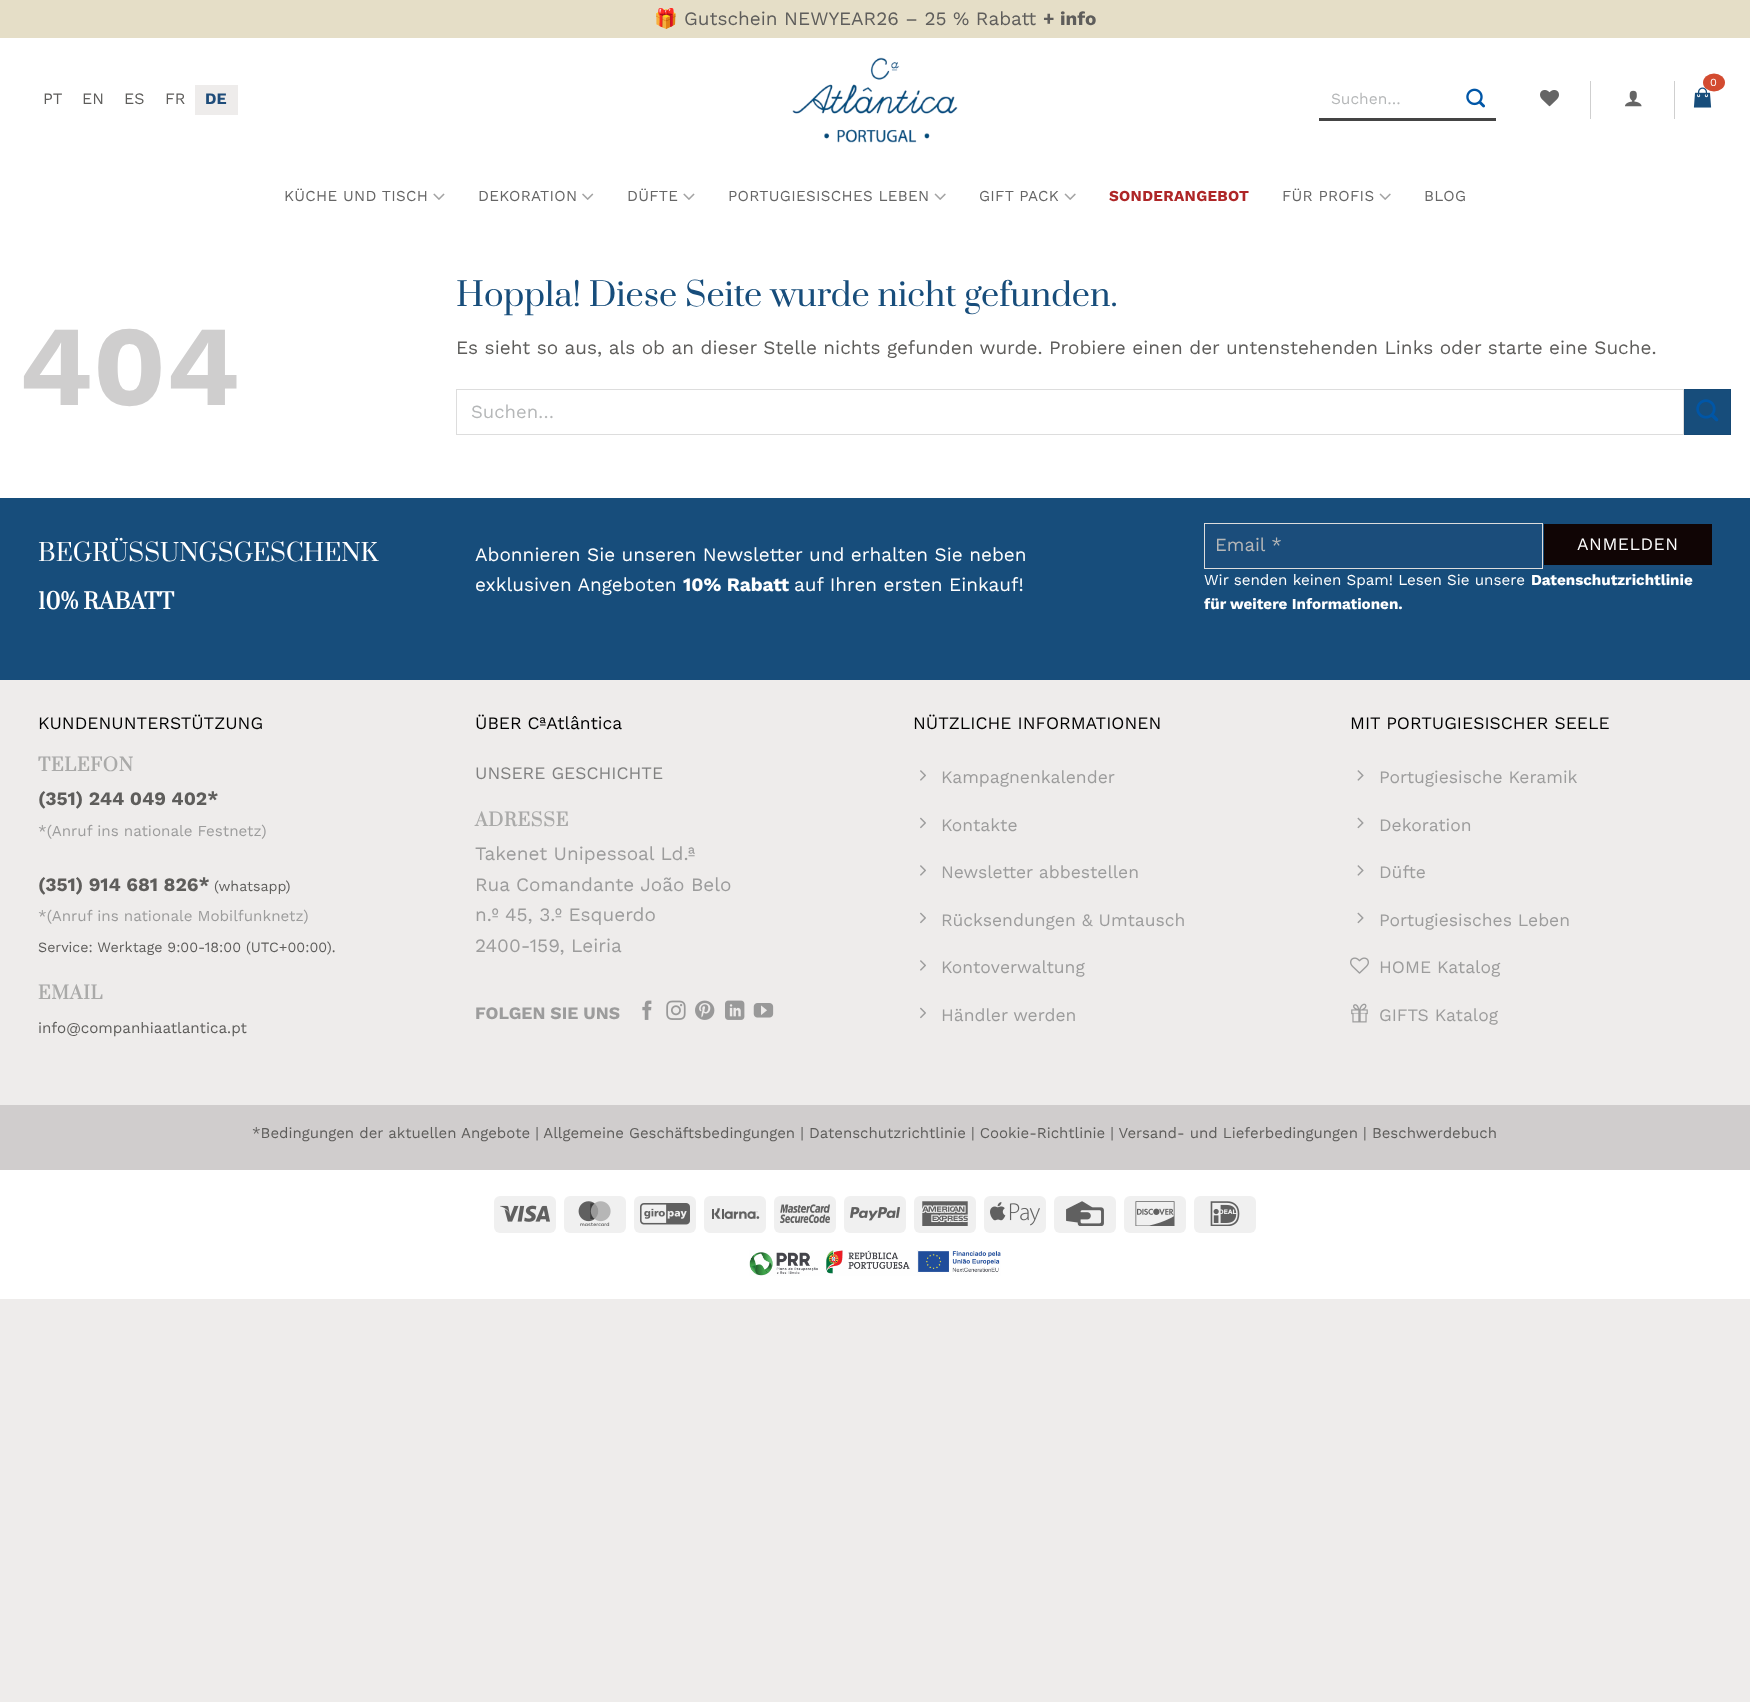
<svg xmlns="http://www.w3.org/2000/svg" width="1750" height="1702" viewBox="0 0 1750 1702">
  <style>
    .t1 { font: 19px Noto Color Emoji; fill: #5e5d5b; }
    .t2 { font: 19px Work Sans; fill: #5e5d5b; }
    .t3 { font: bold 19px Work Sans; fill: #5e5d5b; }
    .t4 { font: 16px Work Sans; fill: #5e5d5b; }
    .t5 { font: bold 16px Work Sans; fill: #1e4c7a; }
    .t6 { font: 15.5px Work Sans; fill: #b5b7b8; }
    .t7 { font: 11px Work Sans; fill: #fff; }
    .t8 { font: 15.2px Work Sans; letter-spacing: 0.3px; fill: #656565; }
    .t9 { font: bold 15.2px Work Sans; letter-spacing: 0.3px; fill: #ae2627; }
    .t10 { font: bold 114px Work Sans; fill: #cfcece; }
    .t11 { font: 32.3px Prata; fill: #174d7b; }
    .t12 { font: 18.5px Work Sans; fill: #b5b7b8; }
    .t13 { font: 23.75px Prata; fill: #fff; }
    .t14 { font: bold 21.5px Prata; fill: #fff; }
    .t15 { font: 19px Work Sans; fill: #fff; }
    .t16 { font: bold 19px Work Sans; fill: #fff; }
    .t17 { font: 17.5px Work Sans; letter-spacing: 0.5px; fill: #fff; }
    .t18 { font: 15.2px Work Sans; fill: #fff; }
    .t19 { font: bold 15.2px Work Sans; fill: #fff; }
    .t20 { font: 17.5px Work Sans; fill: #000; }
    .t21 { font: bold 17.5px Prata; letter-spacing: 0.75px; fill: #aaaaa9; }
    .t22 { font: 15.2px Work Sans; fill: #9c9c9c; }
    .t23 { font: 14.25px Work Sans; fill: #5e5d5b; }
    .t24 { font: 15.2px Work Sans; fill: #5e5d5b; }
    .t25 { font: 17.5px Work Sans; fill: #808080; }
    .t26 { font: 19px Work Sans; fill: #9c9c9c; }
    .t27 { font: bold 17.5px Work Sans; fill: #9c9c9c; }
    .t28 { font: 17.5px Work Sans; fill: #9c9c9c; }
    .t29 { font: 15px Work Sans; fill: #5e5d5b; }
  </style>
  <rect width="100%" height="100%" fill="#eeeceb"/>
  <rect x="0" y="38" width="1750" height="1261" fill="#fff"/>
  <rect x="0" y="0" width="1750" height="38" fill="#e5dec7"/>
  <text x="654" y="25" class="t1">🎁</text>
  <text x="684" y="25" class="t2">Gutschein NEWYEAR26 – 25 % Rabatt</text>
  <text x="1043" y="25" class="t3">+ info</text>
  <text x="43" y="104" class="t4">PT</text>
  <text x="82" y="104" class="t4">EN</text>
  <text x="124" y="104" class="t4">ES</text>
  <text x="165" y="104" class="t4">FR</text>
  <rect x="195" y="85" width="43" height="30" fill="#eeeceb"/>
  <text x="205" y="104" class="t5">DE</text>
  <image x="792" y="57" width="166" height="86" href="images/1.png"/>
  <rect x="1319" y="118" width="177" height="3" fill="#444"/>
  <text x="1331" y="104" class="t6">Suchen…</text>
  <image x="1466" y="88" width="19" height="20" href="images/2.png"/>
  <image x="1540" y="90" width="19" height="17" href="images/3.png"/>
  <rect x="1590" y="81" width="1" height="38" fill="#cfcfcf"/>
  <image x="1625" y="90" width="17" height="17" href="images/4.png"/>
  <rect x="1674" y="81" width="1" height="38" fill="#cfcfcf"/>
  <image x="1693" y="87" width="19" height="21" href="images/5.png"/>
  <ellipse cx="1714" cy="82.5" rx="11" ry="9" fill="#d34b30"/>
  <text x="1710" y="86" class="t7">0</text>
  <text x="284" y="201" class="t8">KÜCHE UND TISCH</text>
  <image x="433" y="193" width="12" height="7" href="images/6.png"/>
  <text x="478" y="201" class="t8">DEKORATION</text>
  <image x="582" y="193" width="12" height="7" href="images/7.png"/>
  <text x="627" y="201" class="t8">DÜFTE</text>
  <image x="683" y="193" width="12" height="7" href="images/6.png"/>
  <text x="728" y="201" class="t8">PORTUGIESISCHES LEBEN</text>
  <image x="934" y="193" width="12" height="7" href="images/8.png"/>
  <text x="979" y="201" class="t8">GIFT PACK</text>
  <image x="1064" y="193" width="12" height="7" href="images/8.png"/>
  <text x="1109" y="201" class="t9">SONDERANGEBOT</text>
  <text x="1282" y="201" class="t8">FÜR PROFIS</text>
  <image x="1379" y="193" width="12" height="7" href="images/8.png"/>
  <text x="1424" y="201" class="t8">BLOG</text>
  <text x="19" y="405" class="t10">404</text>
  <text x="456" y="306" class="t11">Hoppla! Diese Seite wurde nicht gefunden.</text>
  <text x="456" y="354" class="t2">Es sieht so aus, als ob an dieser Stelle nichts gefunden wurde. Probiere einen der untenstehenden Links oder starte eine Suche.</text>
  <rect x="456.5" y="389.5" width="1227" height="45" fill="none" stroke="#ddd"/>
  <text x="471" y="418" class="t12">Suchen…</text>
  <rect x="1684.5" y="389.5" width="46" height="45" fill="#174d7b" stroke="#164975"/>
  <image x="1696" y="399" width="23" height="23" href="images/9.png"/>
  <rect x="0" y="498" width="1750" height="182" fill="#174d7b"/>
  <text x="38" y="561" class="t13">BEGRÜSSUNGSGESCHENK</text>
  <text x="38" y="609" class="t14">10% RABATT</text>
  <text x="475" y="561" class="t15">Abonnieren Sie unseren Newsletter und erhalten Sie neben</text>
  <text x="475" y="591" class="t15">exklusiven Angeboten</text>
  <text x="683" y="591" class="t16">10% Rabatt</text>
  <text x="794" y="591" class="t15">auf Ihren ersten Einkauf!</text>
  <rect x="1205" y="524" width="508" height="45" fill="#1b4d7b"/>
  <rect x="1204.5" y="523.5" width="338" height="45" fill="none" stroke="#ddd"/>
  <text x="1215" y="551" class="t12">Email *</text>
  <rect x="1543.5" y="523.5" width="169" height="42" fill="#100505" stroke="#174d7b"/>
  <text x="1577" y="550" class="t17">ANMELDEN</text>
  <text x="1204" y="585" class="t18">Wir senden keinen Spam! Lesen Sie unsere</text>
  <text x="1531" y="585" class="t19">Datenschutzrichtlinie</text>
  <text x="1204" y="609" class="t19">für weitere Informationen.</text>
  <rect x="0" y="680" width="1750" height="425" fill="#eeeceb"/>
  <text x="38" y="729" class="t20">KUNDENUNTERSTÜTZUNG</text>
  <text x="38" y="771" class="t21">TELEFON</text>
  <text x="38" y="805" class="t3">(351) 244 049 402*</text>
  <text x="38" y="836" class="t22">*(Anruf ins nationale Festnetz)</text>
  <text x="38" y="891" class="t3">(351) 914 681 826*</text>
  <text x="214" y="891" class="t23">(whatsapp)</text>
  <text x="38" y="921" class="t22">*(Anruf ins nationale Mobilfunknetz)</text>
  <text x="38" y="952" class="t23">Service: Werktage 9:00-18:00 (UTC+00:00).</text>
  <text x="38" y="999" class="t21">EMAIL</text>
  <text x="38" y="1033" class="t24">info@companhiaatlantica.pt</text>
  <text x="475" y="729" class="t20">ÜBER CªAtlântica</text>
  <text x="475" y="779" class="t25">UNSERE GESCHICHTE</text>
  <text x="475" y="826" class="t21">ADRESSE</text>
  <text x="475" y="860" class="t26">Takenet Unipessoal Ld.ª</text>
  <text x="475" y="891" class="t26">Rua Comandante João Belo</text>
  <text x="475" y="921" class="t26">n.º 45, 3.º Esquerdo</text>
  <text x="475" y="952" class="t26">2400-159, Leiria</text>
  <text x="475" y="1019" class="t27">FOLGEN SIE UNS</text>
  <image x="642" y="1000" width="10" height="20" href="images/10.png"/>
  <image x="666" y="1000" width="20" height="20" href="images/11.png"/>
  <image x="695" y="1000" width="20" height="20" href="images/12.png"/>
  <image x="725" y="1000" width="20" height="20" href="images/13.png"/>
  <image x="753" y="1003" width="21" height="15" href="images/14.png"/>
  <text x="913" y="729" class="t20">NÜTZLICHE INFORMATIONEN</text>
  <image x="920" y="770" width="6" height="11" href="images/15.png"/>
  <text x="941" y="783" class="t28">Kampagnenkalender</text>
  <image x="920" y="817" width="6" height="12" href="images/16.png"/>
  <text x="941" y="831" class="t28">Kontakte</text>
  <image x="920" y="865" width="6" height="11" href="images/15.png"/>
  <text x="941" y="878" class="t28">Newsletter abbestellen</text>
  <image x="920" y="912" width="6" height="12" href="images/16.png"/>
  <text x="941" y="926" class="t28">Rücksendungen &amp; Umtausch</text>
  <image x="920" y="960" width="6" height="11" href="images/15.png"/>
  <text x="941" y="973" class="t28">Kontoverwaltung</text>
  <image x="920" y="1007" width="6" height="12" href="images/16.png"/>
  <text x="941" y="1021" class="t28">Händler werden</text>
  <text x="1350" y="729" class="t20">MIT PORTUGIESISCHER SEELE</text>
  <image x="1357" y="770" width="7" height="11" href="images/17.png"/>
  <text x="1379" y="783" class="t28">Portugiesische Keramik</text>
  <image x="1357" y="817" width="7" height="12" href="images/18.png"/>
  <text x="1379" y="831" class="t28">Dekoration</text>
  <image x="1357" y="865" width="7" height="11" href="images/17.png"/>
  <text x="1379" y="878" class="t28">Düfte</text>
  <image x="1357" y="912" width="7" height="12" href="images/18.png"/>
  <text x="1379" y="926" class="t28">Portugiesisches Leben</text>
  <image x="1350" y="957" width="19" height="17" href="images/19.png"/>
  <text x="1379" y="973" class="t28">HOME Katalog</text>
  <image x="1351" y="1003" width="17" height="20" href="images/20.png"/>
  <text x="1379" y="1021" class="t28">GIFTS Katalog</text>
  <rect x="0" y="1105" width="1750" height="65" fill="#d0cdcd"/>
  <text x="252" y="1138" class="t29">*Bedingungen der aktuellen Angebote | Allgemeine Geschäftsbedingungen | Datenschutzrichtlinie | Cookie-Richtlinie | Versand- und Lieferbedingungen | Beschwerdebuch</text>
  <rect x="494" y="1196" width="62" height="37" rx="6" fill="#f0f0f0"/>
  <image x="500" y="1205" width="50" height="17" href="images/21.png"/>
  <rect x="564" y="1196" width="62" height="37" rx="6" fill="#f0f0f0"/>
  <image x="578" y="1201" width="33" height="25" href="images/22.png"/>
  <rect x="634" y="1196" width="62" height="37" rx="6" fill="#f0f0f0"/>
  <image x="640" y="1203" width="50" height="22" href="images/23.png"/>
  <rect x="704" y="1196" width="62" height="37" rx="6" fill="#f0f0f0"/>
  <image x="712" y="1208" width="48" height="11" href="images/24.png"/>
  <rect x="774" y="1196" width="62" height="37" rx="6" fill="#f0f0f0"/>
  <image x="780" y="1204" width="50" height="20" href="images/25.png"/>
  <rect x="844" y="1196" width="62" height="37" rx="6" fill="#f0f0f0"/>
  <image x="850" y="1207" width="50" height="14" href="images/26.png"/>
  <rect x="914" y="1196" width="62" height="37" rx="6" fill="#f0f0f0"/>
  <image x="922" y="1201" width="46" height="25" href="images/27.png"/>
  <rect x="984" y="1196" width="62" height="37" rx="6" fill="#f0f0f0"/>
  <image x="990" y="1202" width="50" height="24" href="images/28.png"/>
  <rect x="1054" y="1196" width="62" height="37" rx="6" fill="#f0f0f0"/>
  <image x="1066" y="1201" width="38" height="25" href="images/29.png"/>
  <rect x="1124" y="1196" width="62" height="37" rx="6" fill="#f0f0f0"/>
  <image x="1135" y="1201" width="40" height="25" href="images/30.png"/>
  <rect x="1194" y="1196" width="62" height="37" rx="6" fill="#f0f0f0"/>
  <image x="1210" y="1201" width="30" height="25" href="images/31.png"/>
  <image x="749" y="1250" width="252" height="26" href="images/32.png"/>
</svg>
